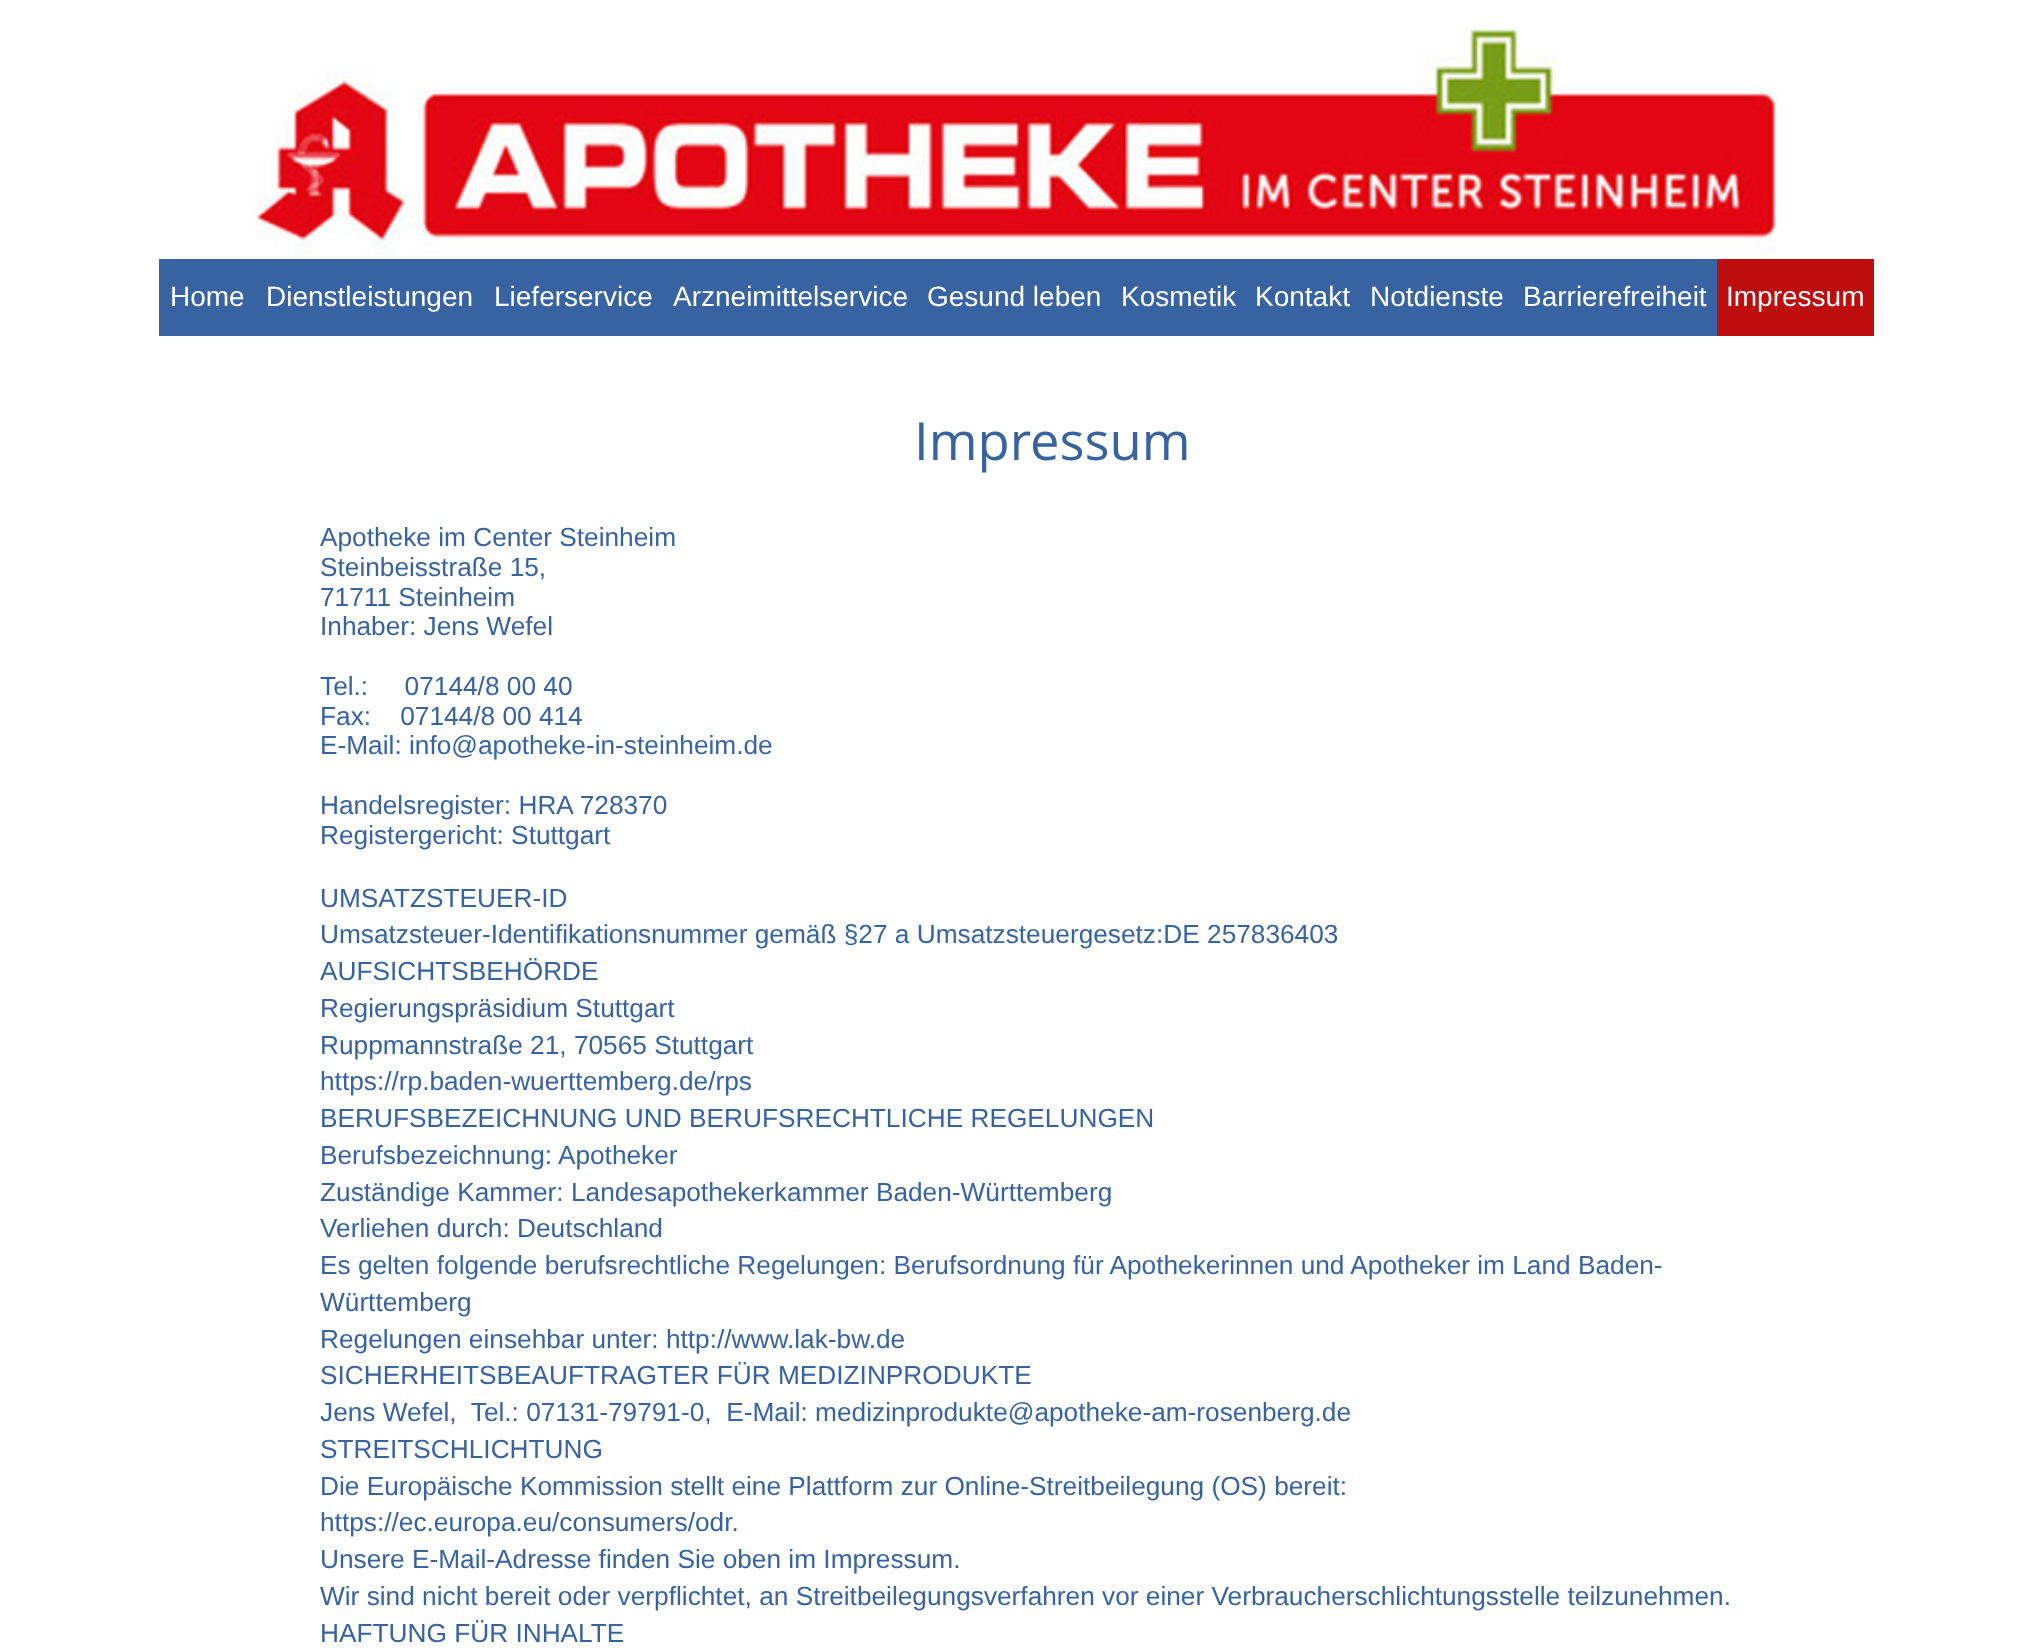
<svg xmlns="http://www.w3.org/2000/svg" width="2033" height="1650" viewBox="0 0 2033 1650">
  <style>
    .t1 { font: 28px Liberation Sans; fill: #fff; }
    .t2 { font: 52.5px Open Sans; fill: #3763a3; }
    .t3 { font: 26.25px Liberation Sans; fill: #3763a3; }
  </style>
  <rect width="100%" height="100%" fill="#fff"/>
  <image x="252" y="28" width="1525" height="227" href="images/1.png"/>
  <rect x="159" y="259" width="1558" height="77" fill="#3763a3"/>
  <text x="170" y="306" class="t1">Home</text>
  <text x="266" y="306" class="t1">Dienstleistungen</text>
  <text x="494" y="306" class="t1">Lieferservice</text>
  <text x="673" y="306" class="t1">Arzneimittelservice</text>
  <text x="927" y="306" class="t1">Gesund leben</text>
  <text x="1121" y="306" class="t1">Kosmetik</text>
  <text x="1255" y="306" class="t1">Kontakt</text>
  <text x="1370" y="306" class="t1">Notdienste</text>
  <text x="1523" y="306" class="t1">Barrierefreiheit</text>
  <rect x="1717" y="259" width="157" height="77" fill="#bd0d0d"/>
  <text x="1726" y="306" class="t1">Impressum</text>
  <text x="914" y="460" class="t2">Impressum</text>
  <text x="320" y="546" class="t3">Apotheke im Center Steinheim</text>
  <text x="320" y="576" class="t3">Steinbeisstraße 15,</text>
  <text x="320" y="606" class="t3">71711 Steinheim</text>
  <text x="320" y="635" class="t3">Inhaber: Jens Wefel</text>
  <text x="320" y="695" class="t3" xml:space="preserve">Tel.:     07144/8 00 40</text>
  <text x="320" y="725" class="t3" xml:space="preserve">Fax:    07144/8 00 414</text>
  <text x="320" y="754" class="t3">E-Mail: info@apotheke-in-steinheim.de</text>
  <text x="320" y="814" class="t3">Handelsregister: HRA 728370</text>
  <text x="320" y="844" class="t3">Registergericht: Stuttgart</text>
  <text x="320" y="907" class="t3">UMSATZSTEUER-ID</text>
  <text x="320" y="943" class="t3">Umsatzsteuer-Identifikationsnummer gemäß §27 a Umsatzsteuergesetz:DE 257836403</text>
  <text x="320" y="980" class="t3">AUFSICHTSBEHÖRDE</text>
  <text x="320" y="1017" class="t3">Regierungspräsidium Stuttgart</text>
  <text x="320" y="1054" class="t3">Ruppmannstraße 21, 70565 Stuttgart</text>
  <text x="320" y="1090" class="t3">https://rp.baden-wuerttemberg.de/rps</text>
  <text x="320" y="1127" class="t3">BERUFSBEZEICHNUNG UND BERUFSRECHTLICHE REGELUNGEN</text>
  <text x="320" y="1164" class="t3">Berufsbezeichnung: Apotheker</text>
  <text x="320" y="1201" class="t3">Zuständige Kammer: Landesapothekerkammer Baden-Württemberg</text>
  <text x="320" y="1237" class="t3">Verliehen durch: Deutschland</text>
  <text x="320" y="1274" class="t3">Es gelten folgende berufsrechtliche Regelungen: Berufsordnung für Apothekerinnen und Apotheker im Land Baden-</text>
  <text x="320" y="1311" class="t3">Württemberg</text>
  <text x="320" y="1348" class="t3">Regelungen einsehbar unter: http://www.lak-bw.de</text>
  <text x="320" y="1384" class="t3">SICHERHEITSBEAUFTRAGTER FÜR MEDIZINPRODUKTE</text>
  <text x="320" y="1421" class="t3" xml:space="preserve">Jens Wefel,  Tel.: 07131-79791-0,  E-Mail: medizinprodukte@apotheke-am-rosenberg.de</text>
  <text x="320" y="1458" class="t3">STREITSCHLICHTUNG</text>
  <text x="320" y="1495" class="t3">Die Europäische Kommission stellt eine Plattform zur Online-Streitbeilegung (OS) bereit:</text>
  <text x="320" y="1531" class="t3">https://ec.europa.eu/consumers/odr.</text>
  <text x="320" y="1568" class="t3">Unsere E-Mail-Adresse finden Sie oben im Impressum.</text>
  <text x="320" y="1605" class="t3">Wir sind nicht bereit oder verpflichtet, an Streitbeilegungsverfahren vor einer Verbraucherschlichtungsstelle teilzunehmen.</text>
  <text x="320" y="1642" class="t3">HAFTUNG FÜR INHALTE</text>
</svg>
